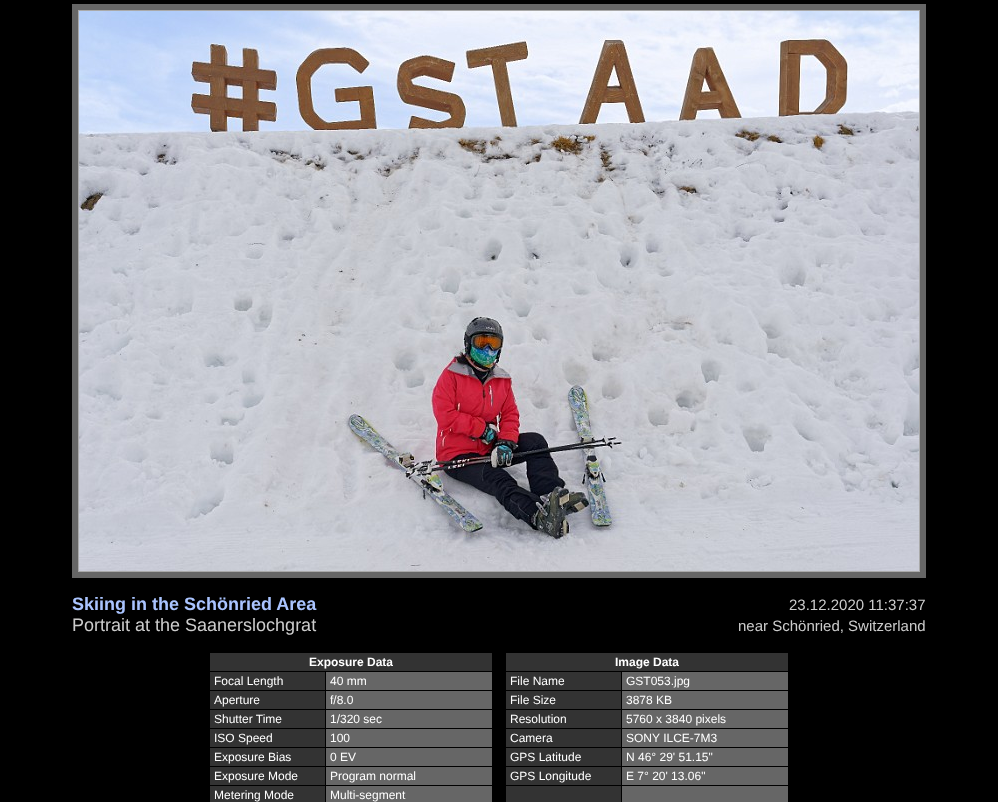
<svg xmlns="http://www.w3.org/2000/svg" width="998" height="802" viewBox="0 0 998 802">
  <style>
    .t1 { font: bold 18px Liberation Sans; fill: #aac4ff; }
    .t2 { font: 15px Liberation Sans; fill: #ccc; }
    .t3 { font: 18px Liberation Sans; fill: #ccc; }
    .t4 { font: bold 12px Liberation Sans; fill: #fff; }
    .t5 { font: 12px Liberation Sans; fill: #fff; }
  </style>
  <rect width="100%" height="100%" fill="#000"/>
  <rect x="72" y="4" width="854" height="574" fill="#666"/>
  <rect x="78.5" y="10.5" width="841" height="561" fill="none" stroke="#aaa"/>
  <image x="79" y="11" width="840" height="560" href="images/1.png"/>
  <text x="72" y="610" class="t1">Skiing in the Schönried Area</text>
  <text x="789" y="610" class="t2">23.12.2020 11:37:37</text>
  <text x="72" y="631" class="t3">Portrait at the Saanerslochgrat</text>
  <text x="738" y="631" class="t2">near Schönried, Switzerland</text>
  <rect x="210" y="653" width="282" height="18" fill="#333"/>
  <text x="309" y="666" class="t4">Exposure Data</text>
  <rect x="506" y="653" width="282" height="18" fill="#333"/>
  <text x="615" y="666" class="t4">Image Data</text>
  <rect x="210" y="672" width="115" height="18" fill="#333"/>
  <text x="214" y="685" class="t5">Focal Length</text>
  <rect x="326" y="672" width="166" height="18" fill="#666"/>
  <text x="330" y="685" class="t5">40 mm</text>
  <rect x="506" y="672" width="115" height="18" fill="#333"/>
  <text x="510" y="685" class="t5">File Name</text>
  <rect x="622" y="672" width="166" height="18" fill="#666"/>
  <text x="626" y="685" class="t5">GST053.jpg</text>
  <rect x="210" y="691" width="115" height="18" fill="#333"/>
  <text x="214" y="704" class="t5">Aperture</text>
  <rect x="326" y="691" width="166" height="18" fill="#666"/>
  <text x="330" y="704" class="t5">f/8.0</text>
  <rect x="506" y="691" width="115" height="18" fill="#333"/>
  <text x="510" y="704" class="t5">File Size</text>
  <rect x="622" y="691" width="166" height="18" fill="#666"/>
  <text x="626" y="704" class="t5">3878 KB</text>
  <rect x="210" y="710" width="115" height="18" fill="#333"/>
  <text x="214" y="723" class="t5">Shutter Time</text>
  <rect x="326" y="710" width="166" height="18" fill="#666"/>
  <text x="330" y="723" class="t5">1/320 sec</text>
  <rect x="506" y="710" width="115" height="18" fill="#333"/>
  <text x="510" y="723" class="t5">Resolution</text>
  <rect x="622" y="710" width="166" height="18" fill="#666"/>
  <text x="626" y="723" class="t5">5760 x 3840 pixels</text>
  <rect x="210" y="729" width="115" height="18" fill="#333"/>
  <text x="214" y="742" class="t5">ISO Speed</text>
  <rect x="326" y="729" width="166" height="18" fill="#666"/>
  <text x="330" y="742" class="t5">100</text>
  <rect x="506" y="729" width="115" height="18" fill="#333"/>
  <text x="510" y="742" class="t5">Camera</text>
  <rect x="622" y="729" width="166" height="18" fill="#666"/>
  <text x="626" y="742" class="t5">SONY ILCE-7M3</text>
  <rect x="210" y="748" width="115" height="18" fill="#333"/>
  <text x="214" y="761" class="t5">Exposure Bias</text>
  <rect x="326" y="748" width="166" height="18" fill="#666"/>
  <text x="330" y="761" class="t5">0 EV</text>
  <rect x="506" y="748" width="115" height="18" fill="#333"/>
  <text x="510" y="761" class="t5">GPS Latitude</text>
  <rect x="622" y="748" width="166" height="18" fill="#666"/>
  <text x="626" y="761" class="t5">N 46° 29' 51.15"</text>
  <rect x="210" y="767" width="115" height="18" fill="#333"/>
  <text x="214" y="780" class="t5">Exposure Mode</text>
  <rect x="326" y="767" width="166" height="18" fill="#666"/>
  <text x="330" y="780" class="t5">Program normal</text>
  <rect x="506" y="767" width="115" height="18" fill="#333"/>
  <text x="510" y="780" class="t5">GPS Longitude</text>
  <rect x="622" y="767" width="166" height="18" fill="#666"/>
  <text x="626" y="780" class="t5">E 7° 20' 13.06"</text>
  <rect x="210" y="786" width="115" height="16" fill="#333"/>
  <text x="214" y="799" class="t5">Metering Mode</text>
  <rect x="326" y="786" width="166" height="16" fill="#666"/>
  <text x="330" y="799" class="t5">Multi-segment</text>
  <rect x="506" y="786" width="115" height="16" fill="#333"/>
  <rect x="622" y="786" width="166" height="16" fill="#666"/>
</svg>
